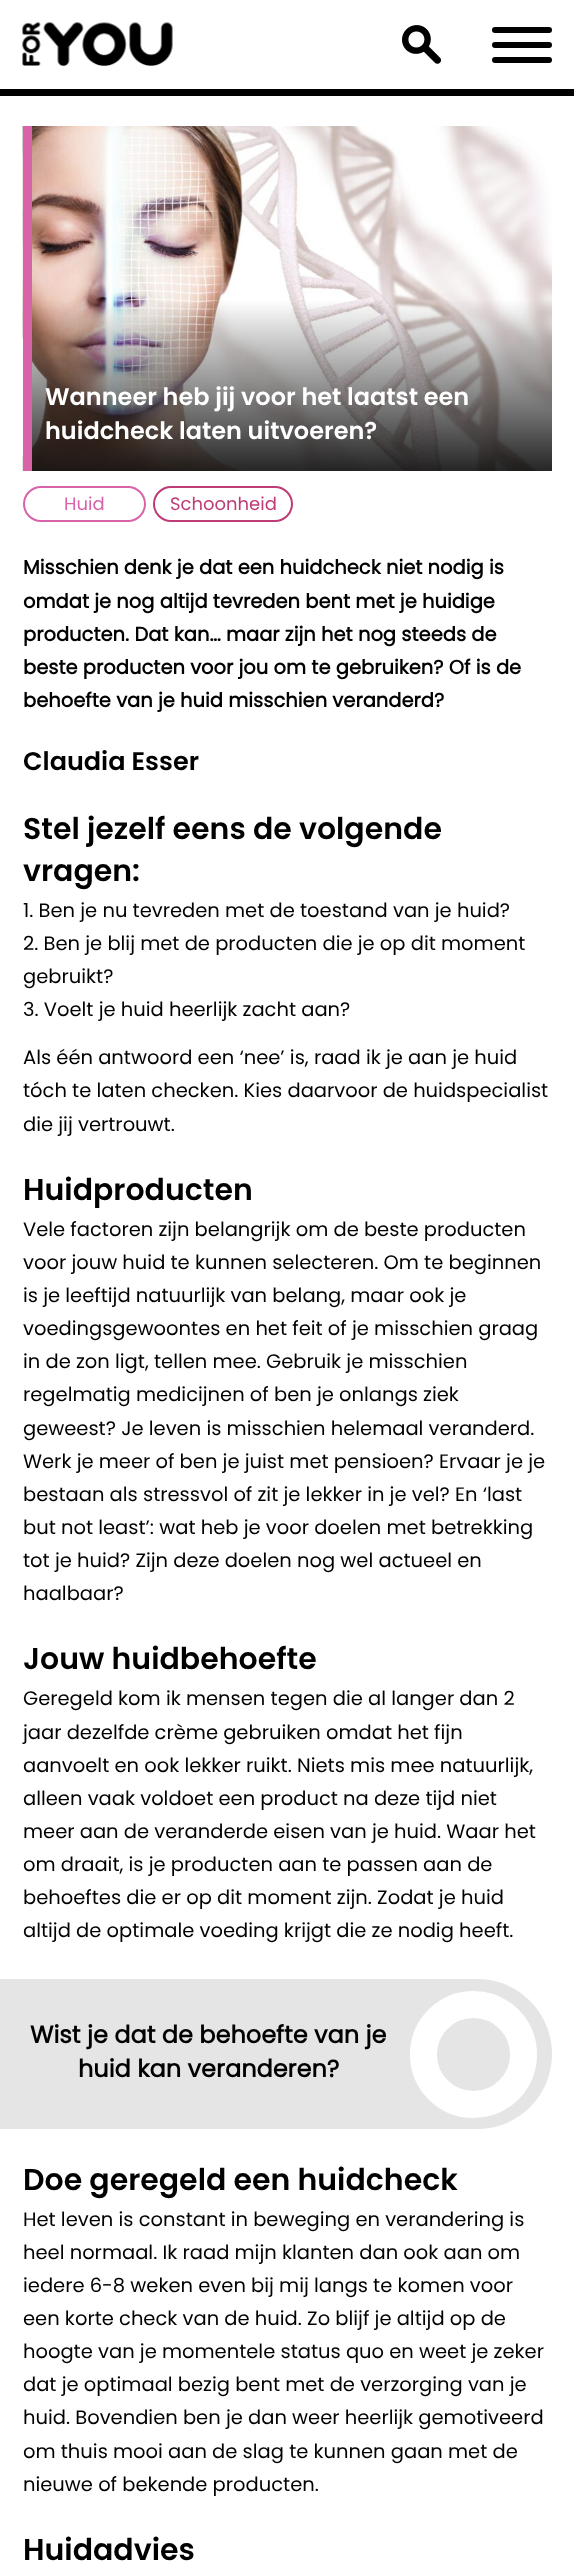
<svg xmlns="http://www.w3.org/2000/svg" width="574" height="2563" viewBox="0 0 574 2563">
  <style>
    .t1 { font: 600 24px Poppins; fill: #fff; }
    .t2 { font: 18px Poppins; fill: #d963a9; }
    .t3 { font: 18px Poppins; fill: #be3b75; }
    .t4 { font: bold 19.5px Poppins; fill: #000; }
    .t5 { font: 600 25.5px Poppins; fill: #000; }
    .t6 { font: 600 30px Poppins; fill: #000; }
    .t7 { font: 19.5px Poppins; fill: #000; }
    .t8 { font: bold 24px Poppins; fill: #000; }
  </style>
  <rect width="100%" height="100%" fill="#fff"/>
  <image x="22" y="22" width="151" height="44" href="images/1.png"/>
  <image x="402" y="25" width="39" height="39" href="images/2.png"/>
  <rect x="492" y="27" width="60" height="6" rx="3" fill="#000"/>
  <rect x="492" y="42" width="60" height="6" rx="3" fill="#000"/>
  <rect x="492" y="57" width="60" height="6" rx="3" fill="#000"/>
  <rect x="0" y="89" width="574" height="7" fill="#000"/>
  <image x="22" y="126" width="530" height="345" href="images/3.png"/>
  <rect x="23" y="126" width="9" height="345" fill="#d963a9"/>
  <text x="45" y="405" class="t1">Wanneer heb jij voor het laatst een</text>
  <text x="45" y="439" class="t1">huidcheck laten uitvoeren?</text>
  <rect x="24" y="487" width="121" height="34" rx="17" fill="none" stroke="#d963a9" stroke-width="2"/>
  <text x="64" y="510" class="t2">Huid</text>
  <rect x="154" y="487" width="138" height="34" rx="17" fill="none" stroke="#be3b75" stroke-width="2"/>
  <text x="170" y="510" class="t3">Schoonheid</text>
  <text x="23" y="574" class="t4">Misschien denk je dat een huidcheck niet nodig is</text>
  <text x="23" y="608" class="t4">omdat je nog altijd tevreden bent met je huidige</text>
  <text x="23" y="641" class="t4">producten. Dat kan… maar zijn het nog steeds de</text>
  <text x="23" y="674" class="t4">beste producten voor jou om te gebruiken? Of is de</text>
  <text x="23" y="707" class="t4">behoefte van je huid misschien veranderd?</text>
  <text x="23" y="770" class="t5">Claudia Esser</text>
  <text x="23" y="839" class="t6">Stel jezelf eens de volgende</text>
  <text x="23" y="881" class="t6">vragen:</text>
  <text x="23" y="917" class="t7">1. Ben je nu tevreden met de toestand van je huid?</text>
  <text x="23" y="950" class="t7">2. Ben je blij met de producten die je op dit moment</text>
  <text x="23" y="983" class="t7">gebruikt?</text>
  <text x="23" y="1016" class="t7">3. Voelt je huid heerlijk zacht aan?</text>
  <text x="23" y="1064" class="t7">Als één antwoord een ‘nee’ is, raad ik je aan je huid</text>
  <text x="23" y="1097" class="t7">tóch te laten checken. Kies daarvoor de huidspecialist</text>
  <text x="23" y="1131" class="t7">die jij vertrouwt.</text>
  <text x="23" y="1200" class="t6">Huidproducten</text>
  <text x="23" y="1236" class="t7">Vele factoren zijn belangrijk om de beste producten</text>
  <text x="23" y="1269" class="t7">voor jouw huid te kunnen selecteren. Om te beginnen</text>
  <text x="23" y="1302" class="t7">is je leeftijd natuurlijk van belang, maar ook je</text>
  <text x="23" y="1335" class="t7">voedingsgewoontes en het feit of je misschien graag</text>
  <text x="23" y="1368" class="t7">in de zon ligt, tellen mee. Gebruik je misschien</text>
  <text x="23" y="1401" class="t7">regelmatig medicijnen of ben je onlangs ziek</text>
  <text x="23" y="1435" class="t7">geweest? Je leven is misschien helemaal veranderd.</text>
  <text x="23" y="1468" class="t7">Werk je meer of ben je juist met pensioen? Ervaar je je</text>
  <text x="23" y="1501" class="t7">bestaan als stressvol of zit je lekker in je vel? En ‘last</text>
  <text x="23" y="1534" class="t7">but not least’: wat heb je voor doelen met betrekking</text>
  <text x="23" y="1567" class="t7">tot je huid? Zijn deze doelen nog wel actueel en</text>
  <text x="23" y="1600" class="t7">haalbaar?</text>
  <text x="23" y="1669" class="t6">Jouw huidbehoefte</text>
  <text x="23" y="1705" class="t7">Geregeld kom ik mensen tegen die al langer dan 2</text>
  <text x="23" y="1739" class="t7">jaar dezelfde crème gebruiken omdat het fijn</text>
  <text x="23" y="1772" class="t7">aanvoelt en ook lekker ruikt. Niets mis mee natuurlijk,</text>
  <text x="23" y="1805" class="t7">alleen vaak voldoet een product na deze tijd niet</text>
  <text x="23" y="1838" class="t7">meer aan de veranderde eisen van je huid. Waar het</text>
  <text x="23" y="1871" class="t7">om draait, is je producten aan te passen aan de</text>
  <text x="23" y="1904" class="t7">behoeftes die er op dit moment zijn. Zodat je huid</text>
  <text x="23" y="1937" class="t7">altijd de optimale voeding krijgt die ze nodig heeft.</text>
  <path d="M0 1979H477C518.5 1979 552 2012.5 552 2054C552 2095.5 518.5 2129 477 2129H0Z" fill="#e5e5e5"/>
  <text x="30" y="2043" class="t8">Wist je dat de behoefte van je</text>
  <text x="78" y="2077" class="t8">huid kan veranderen?</text>
  <circle cx="473.5" cy="2054.5" r="50" fill="none" stroke="#fff" stroke-width="27"/>
  <text x="23" y="2190" class="t6">Doe geregeld een huidcheck</text>
  <text x="23" y="2226" class="t7">Het leven is constant in beweging en verandering is</text>
  <text x="23" y="2259" class="t7">heel normaal. Ik raad mijn klanten dan ook aan om</text>
  <text x="23" y="2292" class="t7">iedere 6-8 weken even bij mij langs te komen voor</text>
  <text x="23" y="2325" class="t7">een korte check van de huid. Zo blijf je altijd op de</text>
  <text x="23" y="2358" class="t7">hoogte van je momentele status quo en weet je zeker</text>
  <text x="23" y="2391" class="t7">dat je optimaal bezig bent met de verzorging van je</text>
  <text x="23" y="2424" class="t7">huid. Bovendien ben je dan weer heerlijk gemotiveerd</text>
  <text x="23" y="2458" class="t7">om thuis mooi aan de slag te kunnen gaan met de</text>
  <text x="23" y="2491" class="t7">nieuwe of bekende producten.</text>
  <text x="23" y="2560" class="t6">Huidadvies</text>
</svg>
